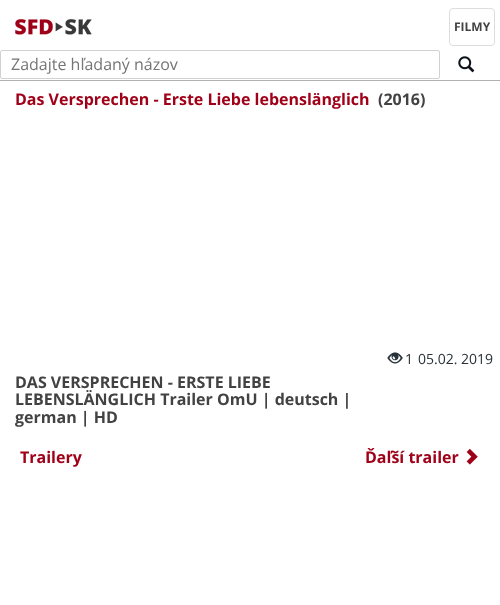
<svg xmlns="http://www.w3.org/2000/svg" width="500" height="605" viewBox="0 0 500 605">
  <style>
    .t1 { font: bold 12px Open Sans; fill: #424242; }
    .t2 { font: 16px Open Sans; fill: #757575; }
    .t3 { font: bold 16px Open Sans; fill: #a00018; }
    .t4 { font: bold 16px Open Sans; fill: #424242; }
    .t5 { font: 14px Open Sans; fill: #263238; }
  </style>
  <rect width="100%" height="100%" fill="#fff"/>
  <image x="15" y="19" width="77" height="16" href="images/1.png"/>
  <rect x="449.5" y="8.5" width="45" height="37" rx="3.5" fill="none" stroke="#ddd"/>
  <text x="454" y="31" class="t1">FILMY</text>
  <rect x="0" y="80" width="500" height="1" fill="#b1b1b1"/>
  <rect x="0.5" y="50.5" width="439" height="28" rx="1.5" fill="none" stroke="#d2d2d2"/>
  <text x="11" y="70" class="t2">Zadajte hľadaný názov</text>
  <image x="458" y="56" width="17" height="17" href="images/2.png"/>
  <text x="15" y="105" class="t3">Das Versprechen - Erste Liebe lebenslänglich</text>
  <text x="378" y="105" class="t4">(2016)</text>
  <image x="387" y="352" width="16" height="12" href="images/3.png"/>
  <text x="405" y="364" class="t5">1</text>
  <text x="418" y="364" class="t5">05.02. 2019</text>
  <text x="15" y="388" class="t4">DAS VERSPRECHEN - ERSTE LIEBE</text>
  <text x="15" y="405" class="t4">LEBENSLÄNGLICH Trailer OmU | deutsch |</text>
  <text x="15" y="423" class="t4">german | HD</text>
  <text x="20" y="463" class="t3">Trailery</text>
  <text x="365" y="463" class="t3">Ďaľší trailer</text>
  <image x="466" y="448" width="12" height="17" href="images/4.png"/>
</svg>
